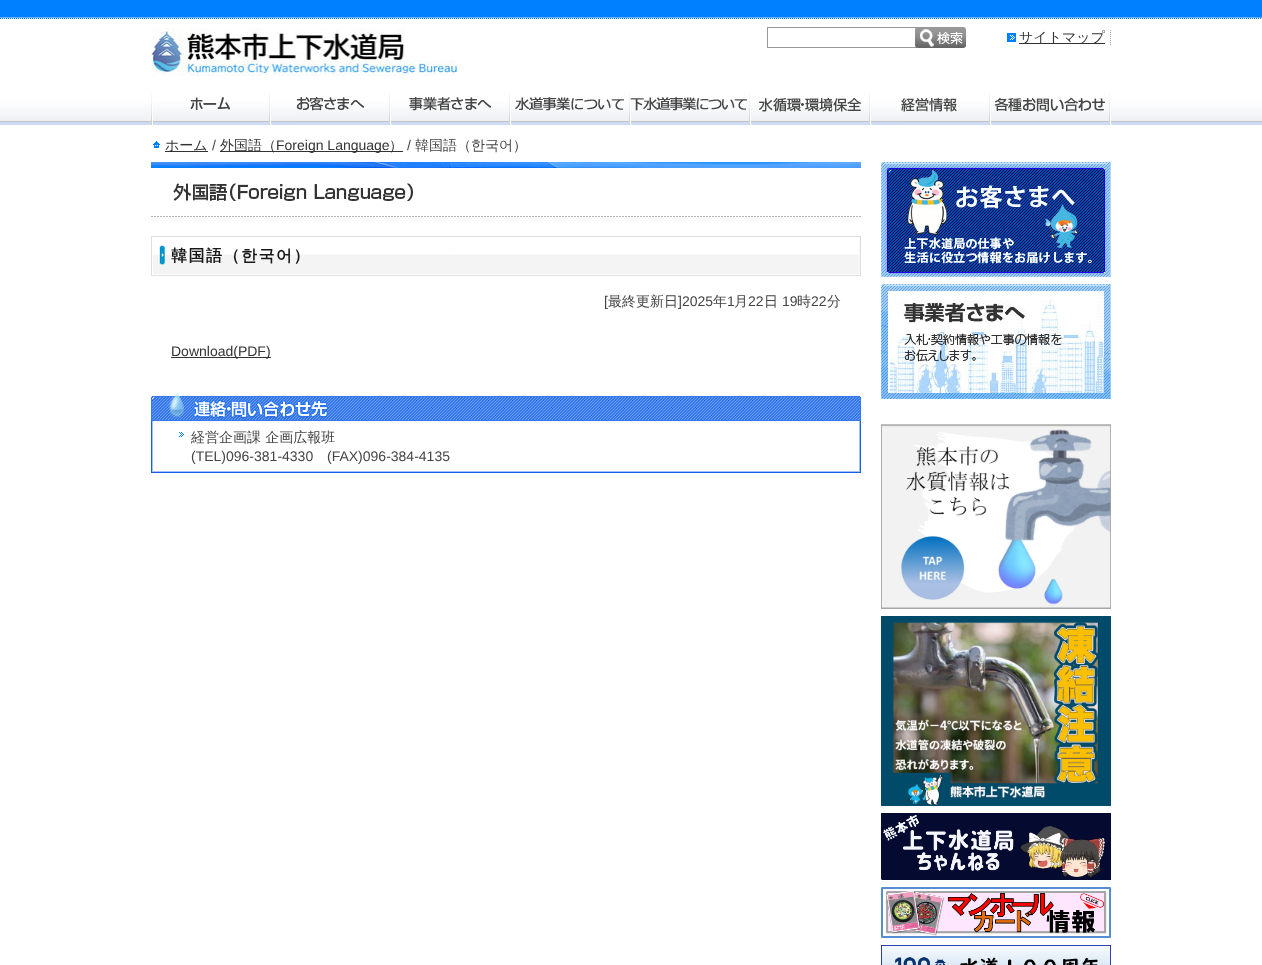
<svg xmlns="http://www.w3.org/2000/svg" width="1262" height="965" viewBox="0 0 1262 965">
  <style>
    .t1 { font: 500 14px WenQuanYi Zen Hei; fill: #333; }
    .t2 { font: 14px Liberation Sans; fill: #444; }
    .t3 { font: 14px Liberation Sans; fill: #333; }
    .t4 { font: 500 14px WenQuanYi Zen Hei; fill: #444; }
    .t5 { font: bold 16px WenQuanYi Zen Hei; letter-spacing: 1.5px; fill: #181818; }
  </style>
  <rect width="100%" height="100%" fill="#fff"/>
  <image x="0" y="0" width="1262" height="125" href="images/1.png"/>
  <image x="151" y="28" width="306" height="48" href="images/2.png"/>
  <rect x="767" y="27" width="150" height="1" fill="#999"/>
  <rect x="767" y="47" width="150" height="1" fill="#999"/>
  <rect x="767" y="27" width="1" height="21" fill="#999"/>
  <image x="915" y="27" width="51" height="21" href="images/3.png"/>
  <image x="1007" y="33" width="9" height="9" href="images/4.png"/>
  <path d="M1110.5 30V45" fill="none" stroke="#a4a4a4" stroke-dasharray="1 1"/>
  <rect x="1019" y="43" width="86" height="1" fill="#333"/>
  <text x="1019" y="42" class="t1">サイトマップ</text>
  <image x="151" y="91" width="120" height="34" href="images/5.png"/>
  <image x="296" y="91" width="95" height="34" href="images/6.png"/>
  <image x="409" y="91" width="102" height="34" href="images/7.png"/>
  <image x="515" y="91" width="116" height="34" href="images/8.png"/>
  <image x="631" y="91" width="120" height="34" href="images/9.png"/>
  <image x="759" y="91" width="112" height="34" href="images/10.png"/>
  <image x="901" y="91" width="90" height="34" href="images/11.png"/>
  <image x="994" y="91" width="117" height="34" href="images/12.png"/>
  <image x="153" y="141" width="7" height="7" href="images/13.png"/>
  <rect x="165" y="151" width="43" height="1" fill="#333"/>
  <text x="165" y="150" class="t1">ホーム</text>
  <text x="212" y="150" class="t2">/</text>
  <rect x="220" y="151" width="183" height="1" fill="#333"/>
  <text x="220" y="150" class="t1">外国語（</text>
  <text x="276" y="150" class="t3">Foreign Language</text>
  <text x="389" y="150" class="t1">）</text>
  <text x="407" y="150" class="t2">/</text>
  <text x="415" y="150" class="t4">韓国語（한국어）</text>
  <rect x="151" y="217" width="710" height="4" fill="#fcfcfc"/>
  <image x="151" y="162" width="710" height="55" href="images/14.png"/>
  <image x="151" y="236" width="710" height="40" href="images/15.png"/>
  <text x="171" y="261" class="t5">韓国語（한국어）</text>
  <text x="604" y="306" class="t2">[</text>
  <text x="608" y="306" class="t4">最終更新日</text>
  <text x="678" y="306" class="t2">]2025</text>
  <text x="713" y="306" class="t4">年</text>
  <text x="727" y="306" class="t2">1</text>
  <text x="734" y="306" class="t4">月</text>
  <text x="748" y="306" class="t2">22</text>
  <text x="764" y="306" class="t4">日</text>
  <text x="782" y="306" class="t2">19</text>
  <text x="797" y="306" class="t4">時</text>
  <text x="811" y="306" class="t2">22</text>
  <text x="827" y="306" class="t4">分</text>
  <rect x="171" y="357" width="100" height="1" fill="#333"/>
  <text x="171" y="356" class="t3">Download(PDF)</text>
  <image x="151" y="393" width="710" height="32" href="images/16.png"/>
  <image x="151" y="425" width="710" height="43" href="images/17.png"/>
  <image x="179" y="432" width="5" height="5" href="images/18.png"/>
  <text x="191" y="442" class="t4">経営企画課 企画広報班</text>
  <text x="191" y="461" class="t2">(TEL)096-381-4330</text>
  <text x="327" y="461" class="t2">(FAX)096-384-4135</text>
  <image x="151" y="468" width="710" height="5" href="images/19.png"/>
  <image x="881" y="162" width="230" height="115" href="images/20.png"/>
  <image x="881" y="284" width="230" height="115" href="images/21.png"/>
  <image x="881" y="424" width="230" height="185" href="images/22.png"/>
  <image x="881" y="616" width="230" height="190" href="images/23.png"/>
  <image x="881" y="813" width="230" height="67" href="images/24.png"/>
  <image x="881" y="887" width="230" height="51" href="images/25.png"/>
  <image x="881" y="945" width="230" height="20" href="images/26.png"/>
</svg>
